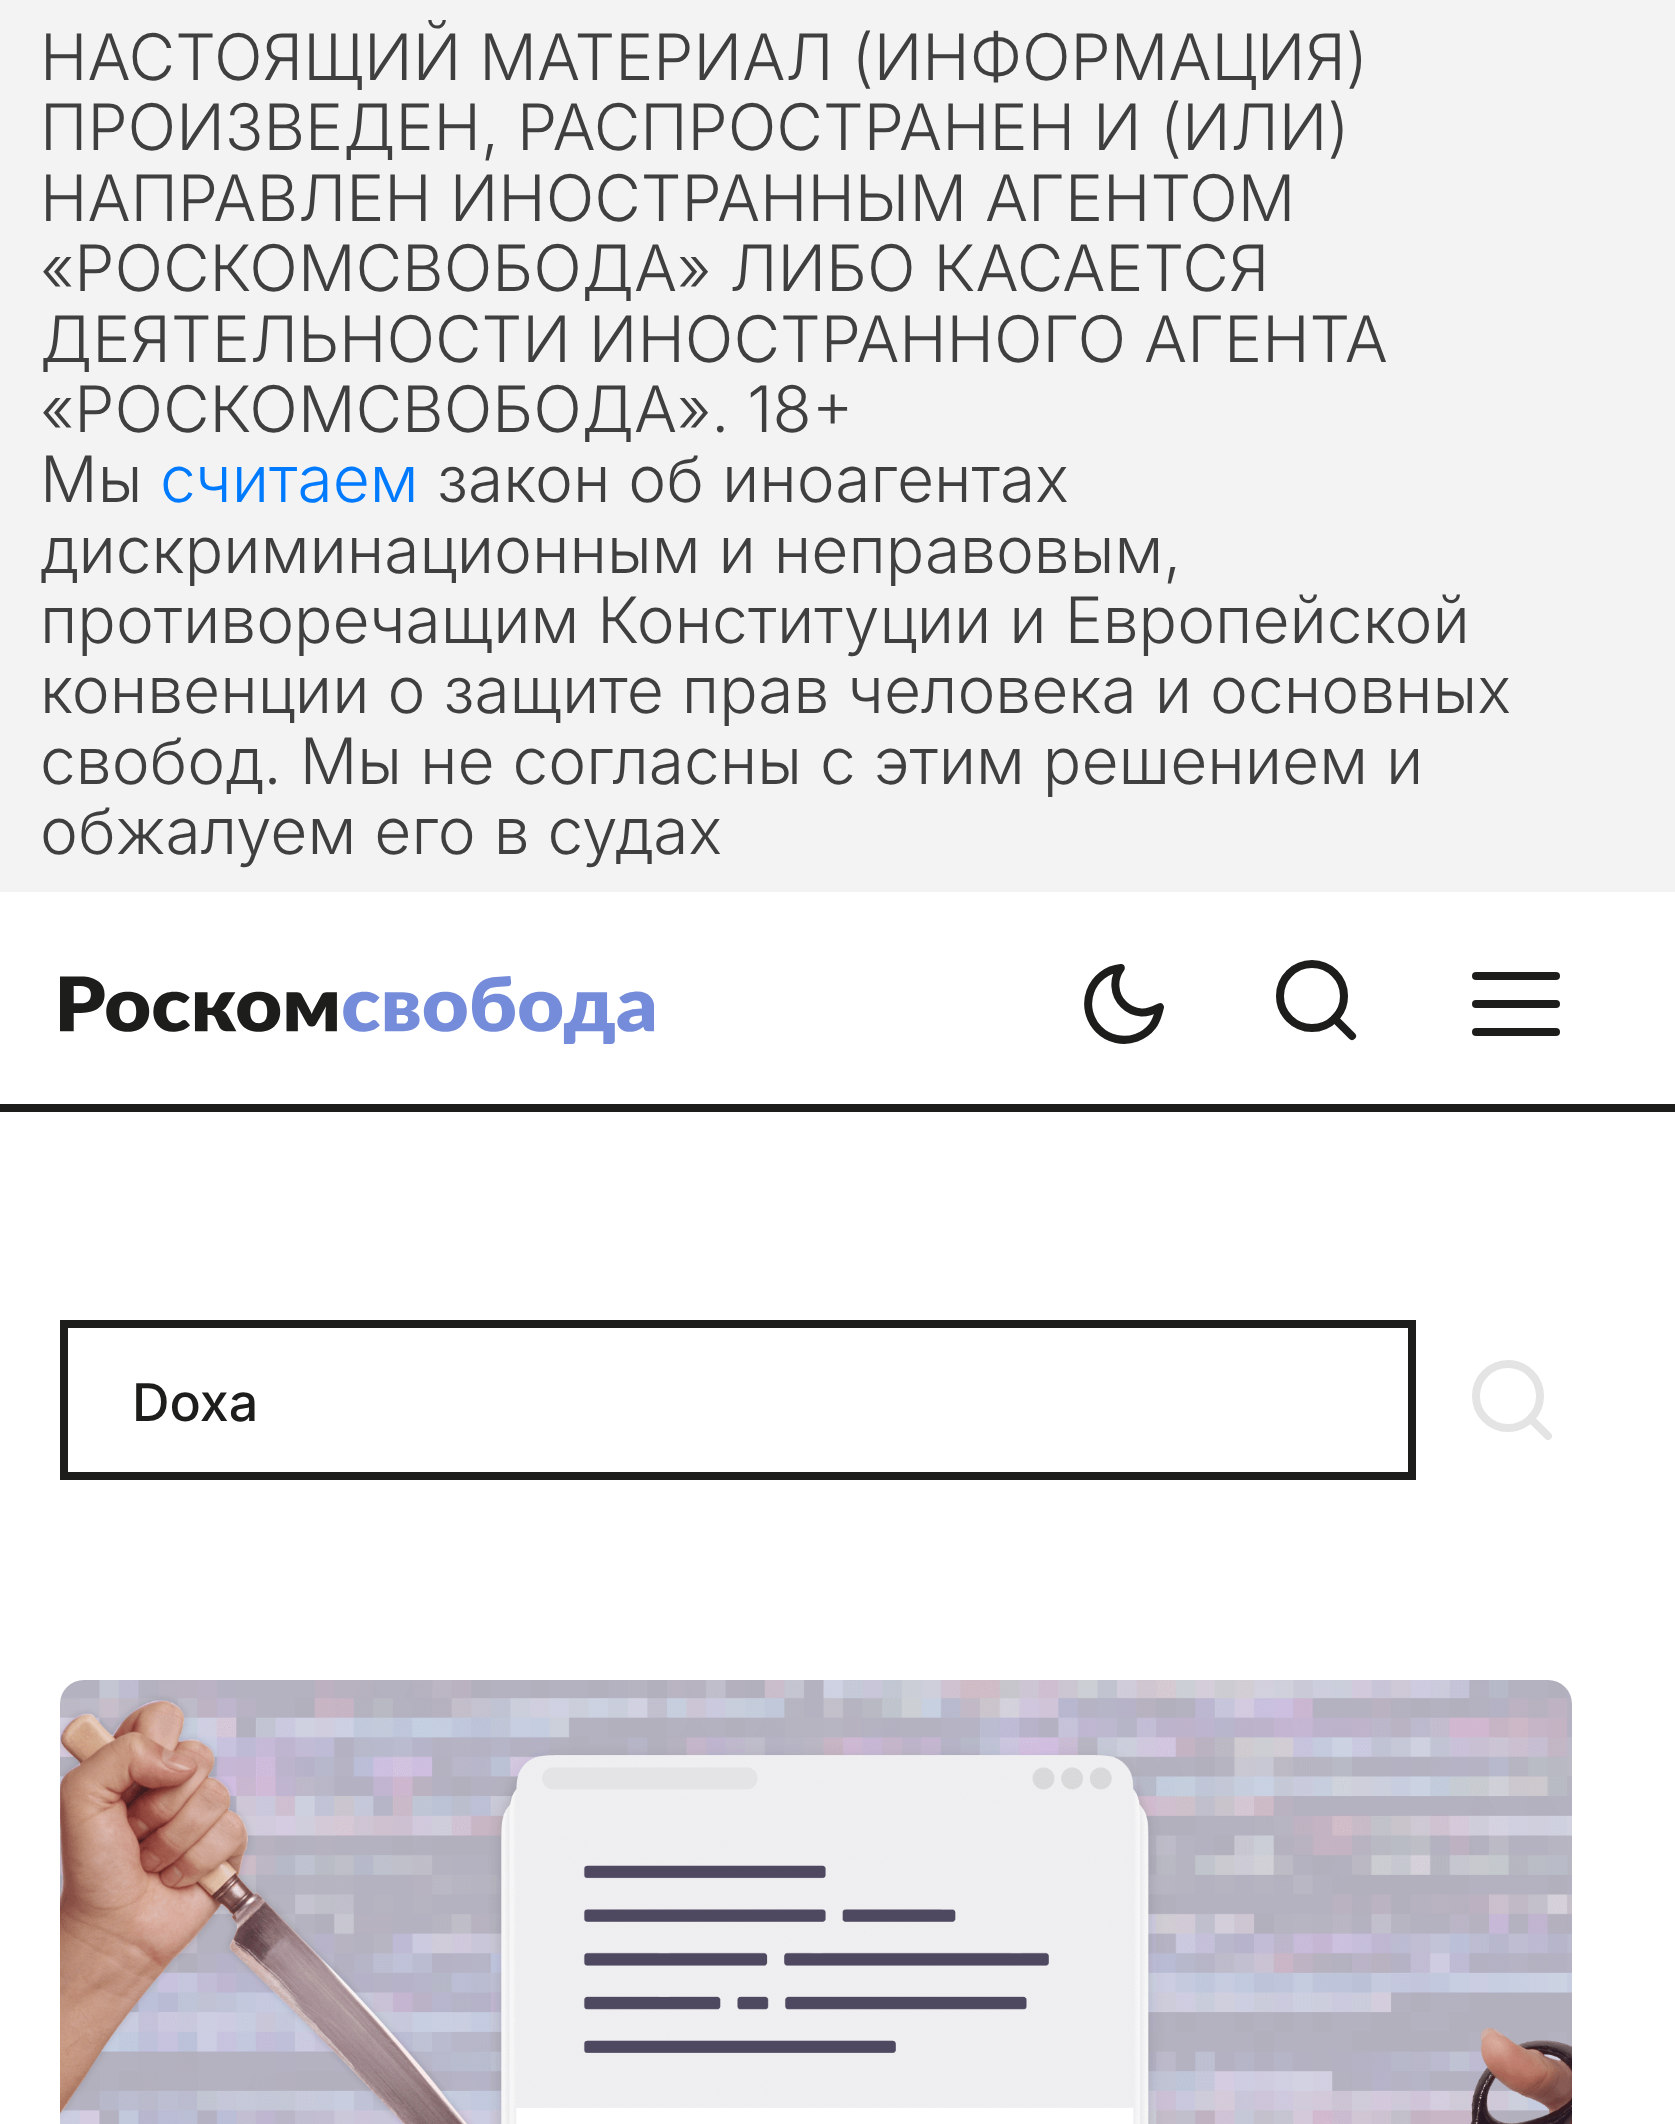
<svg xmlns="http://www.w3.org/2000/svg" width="1675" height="2124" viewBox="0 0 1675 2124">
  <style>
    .t1 { font: 300 64px Inter; fill: #3f3f3f; }
    .t2 { font: 300 64px Inter; fill: #007bff; }
    .t3 { font: 500 52px Inter; fill: #1d1d1b; }
  </style>
  <rect width="100%" height="100%" fill="#fff"/>
  <rect x="0" y="0" width="1675" height="892" fill="#f3f3f3"/>
  <text x="40" y="80" class="t1">НАСТОЯЩИЙ МАТЕРИАЛ (ИНФОРМАЦИЯ)</text>
  <text x="40" y="150" class="t1">ПРОИЗВЕДЕН, РАСПРОСТРАНЕН И (ИЛИ)</text>
  <text x="40" y="221" class="t1">НАПРАВЛЕН ИНОСТРАННЫМ АГЕНТОМ</text>
  <text x="40" y="291" class="t1">«РОСКОМСВОБОДА» ЛИБО КАСАЕТСЯ</text>
  <text x="40" y="362" class="t1">ДЕЯТЕЛЬНОСТИ ИНОСТРАННОГО АГЕНТА</text>
  <text x="40" y="432" class="t1">«РОСКОМСВОБОДА». 18+</text>
  <text x="40" y="502" class="t1">Мы</text>
  <text x="160" y="502" class="t2">считаем</text>
  <text x="437" y="502" class="t1">закон об иноагентах</text>
  <text x="40" y="573" class="t1">дискриминационным и неправовым,</text>
  <text x="40" y="643" class="t1">противоречащим Конституции и Европейской</text>
  <text x="40" y="713" class="t1">конвенции о защите прав человека и основных</text>
  <text x="40" y="784" class="t1">свобод. Мы не согласны с этим решением и</text>
  <text x="40" y="854" class="t1">обжалуем его в судах</text>
  <rect x="0" y="1104" width="1675" height="8" fill="#1d1d1b"/>
  <image x="60" y="976" width="594" height="68" href="images/1.png"/>
  <image x="1084" y="964" width="80" height="80" href="images/2.png"/>
  <image x="1276" y="960" width="81" height="81" href="images/3.png"/>
  <image x="1472" y="972" width="88" height="64" href="images/4.png"/>
  <rect x="64" y="1324" width="1348" height="152" fill="none" stroke="#1d1d1b" stroke-width="8"/>
  <text x="132" y="1421" class="t3">Doxa</text>
  <image x="1472" y="1360" width="80" height="80" href="images/5.png"/>
  <image x="60" y="1680" width="1512" height="444" href="images/6.png"/>
</svg>
